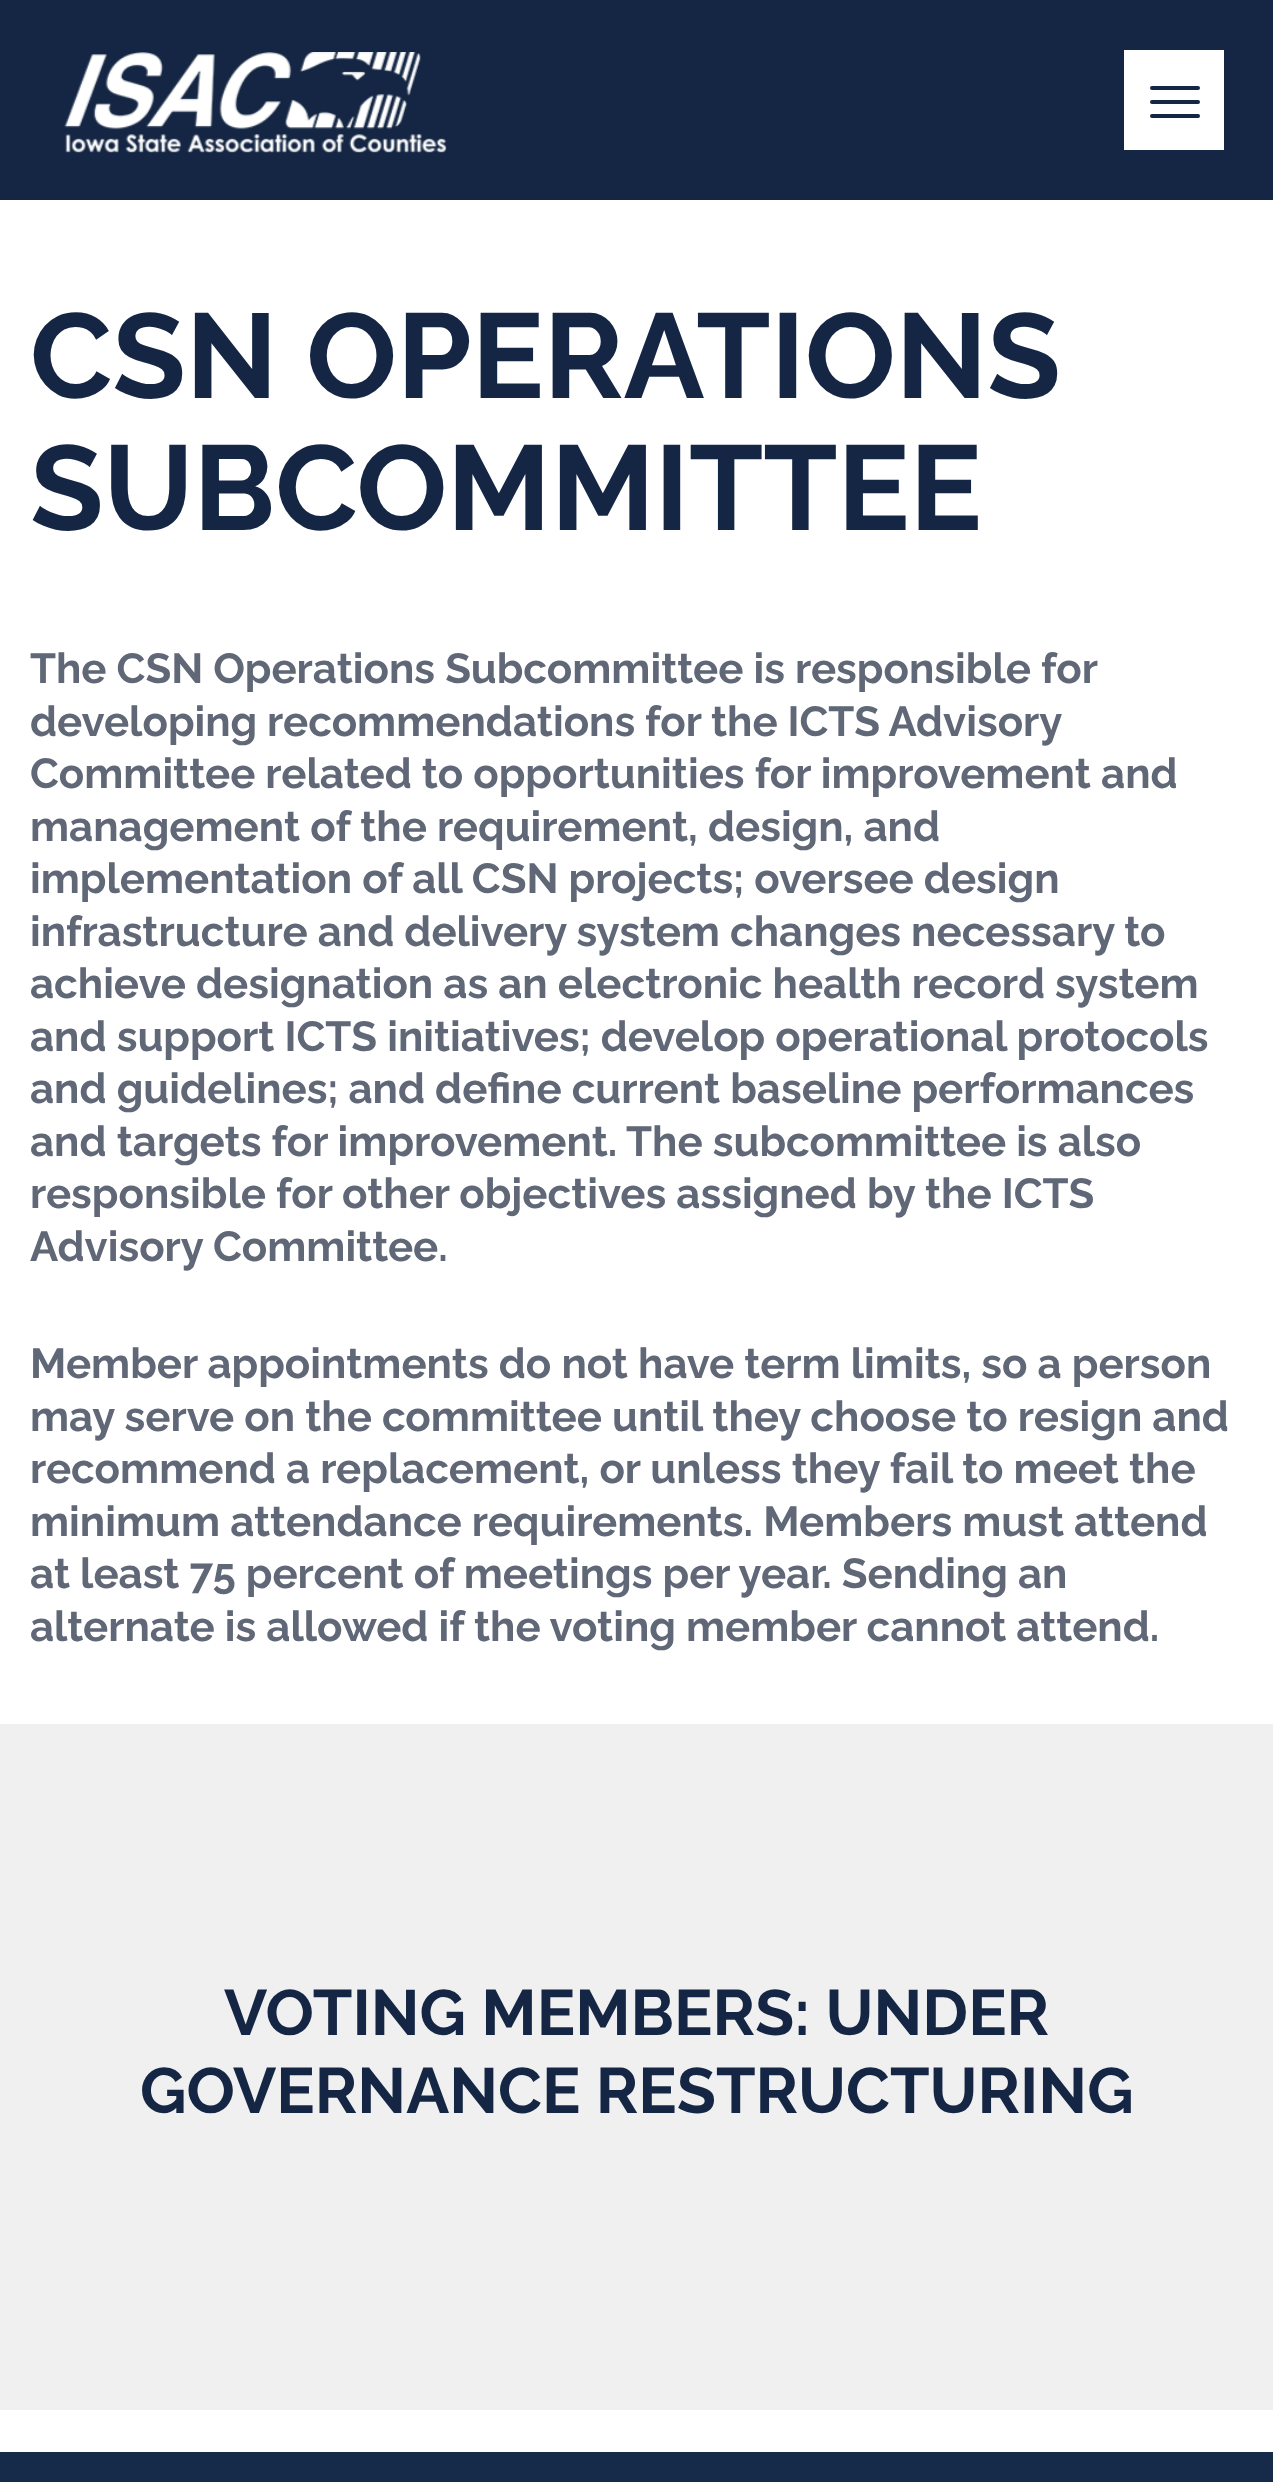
<svg xmlns="http://www.w3.org/2000/svg" width="1273" height="2482" viewBox="0 0 1273 2482">
  <style>
    .t1 { font: 100 120px Raleway; fill: #142643; }
    .t2 { font: 100 42px Raleway; fill: #606776; }
    .t3 { font: 100 64px Raleway; fill: #142643; }
  </style>
  <rect width="100%" height="100%" fill="#fff"/>
  <rect x="0" y="0" width="1273" height="200" fill="#142643"/>
  <image x="64" y="52" width="383" height="101" href="images/1.png"/>
  <rect x="1124" y="50" width="100" height="100" fill="#fff"/>
  <rect x="1150" y="114" width="50" height="4" rx="2" fill="#142643"/>
  <rect x="1150" y="86" width="50" height="4" rx="2" fill="#142643"/>
  <rect x="1150" y="100" width="50" height="4" rx="2" fill="#142643"/>
  <text x="30" y="398" class="t1">CSN OPERATIONS</text>
  <text x="30" y="530" class="t1">SUBCOMMITTEE</text>
  <text x="30" y="683" class="t2">The CSN Operations Subcommittee is responsible for</text>
  <text x="30" y="736" word-spacing="-0.25" class="t2">developing recommendations for the ICTS Advisory</text>
  <text x="30" y="788" class="t2">Committee related to opportunities for improvement and</text>
  <text x="30" y="841" class="t2">management of the requirement, design, and</text>
  <text x="30" y="893" class="t2">implementation of all CSN projects; oversee design</text>
  <text x="30" y="946" class="t2">infrastructure and delivery system changes necessary to</text>
  <text x="30" y="998" class="t2">achieve designation as an electronic health record system</text>
  <text x="30" y="1051" class="t2">and support ICTS initiatives; develop operational protocols</text>
  <text x="30" y="1103" class="t2">and guidelines; and define current baseline performances</text>
  <text x="30" y="1156" class="t2">and targets for improvement. The subcommittee is also</text>
  <text x="30" y="1208" class="t2">responsible for other objectives assigned by the ICTS</text>
  <text x="30" y="1261" class="t2">Advisory Committee.</text>
  <text x="30" y="1378" class="t2">Member appointments do not have term limits, so a person</text>
  <text x="30" y="1431" class="t2">may serve on the committee until they choose to resign and</text>
  <text x="30" y="1483" class="t2">recommend a replacement, or unless they fail to meet the</text>
  <text x="30" y="1536" class="t2">minimum attendance requirements. Members must attend</text>
  <text x="30" y="1588" class="t2">at least 75 percent of meetings per year. Sending an</text>
  <text x="30" y="1641" class="t2">alternate is allowed if the voting member cannot attend.</text>
  <rect x="0" y="1724" width="1273" height="686" fill="#f0f0f0"/>
  <text x="224" y="2035" class="t3">VOTING MEMBERS: UNDER</text>
  <text x="140" y="2113" class="t3">GOVERNANCE RESTRUCTURING</text>
  <rect x="0" y="2452" width="1273" height="30" fill="#162a4a"/>
</svg>
